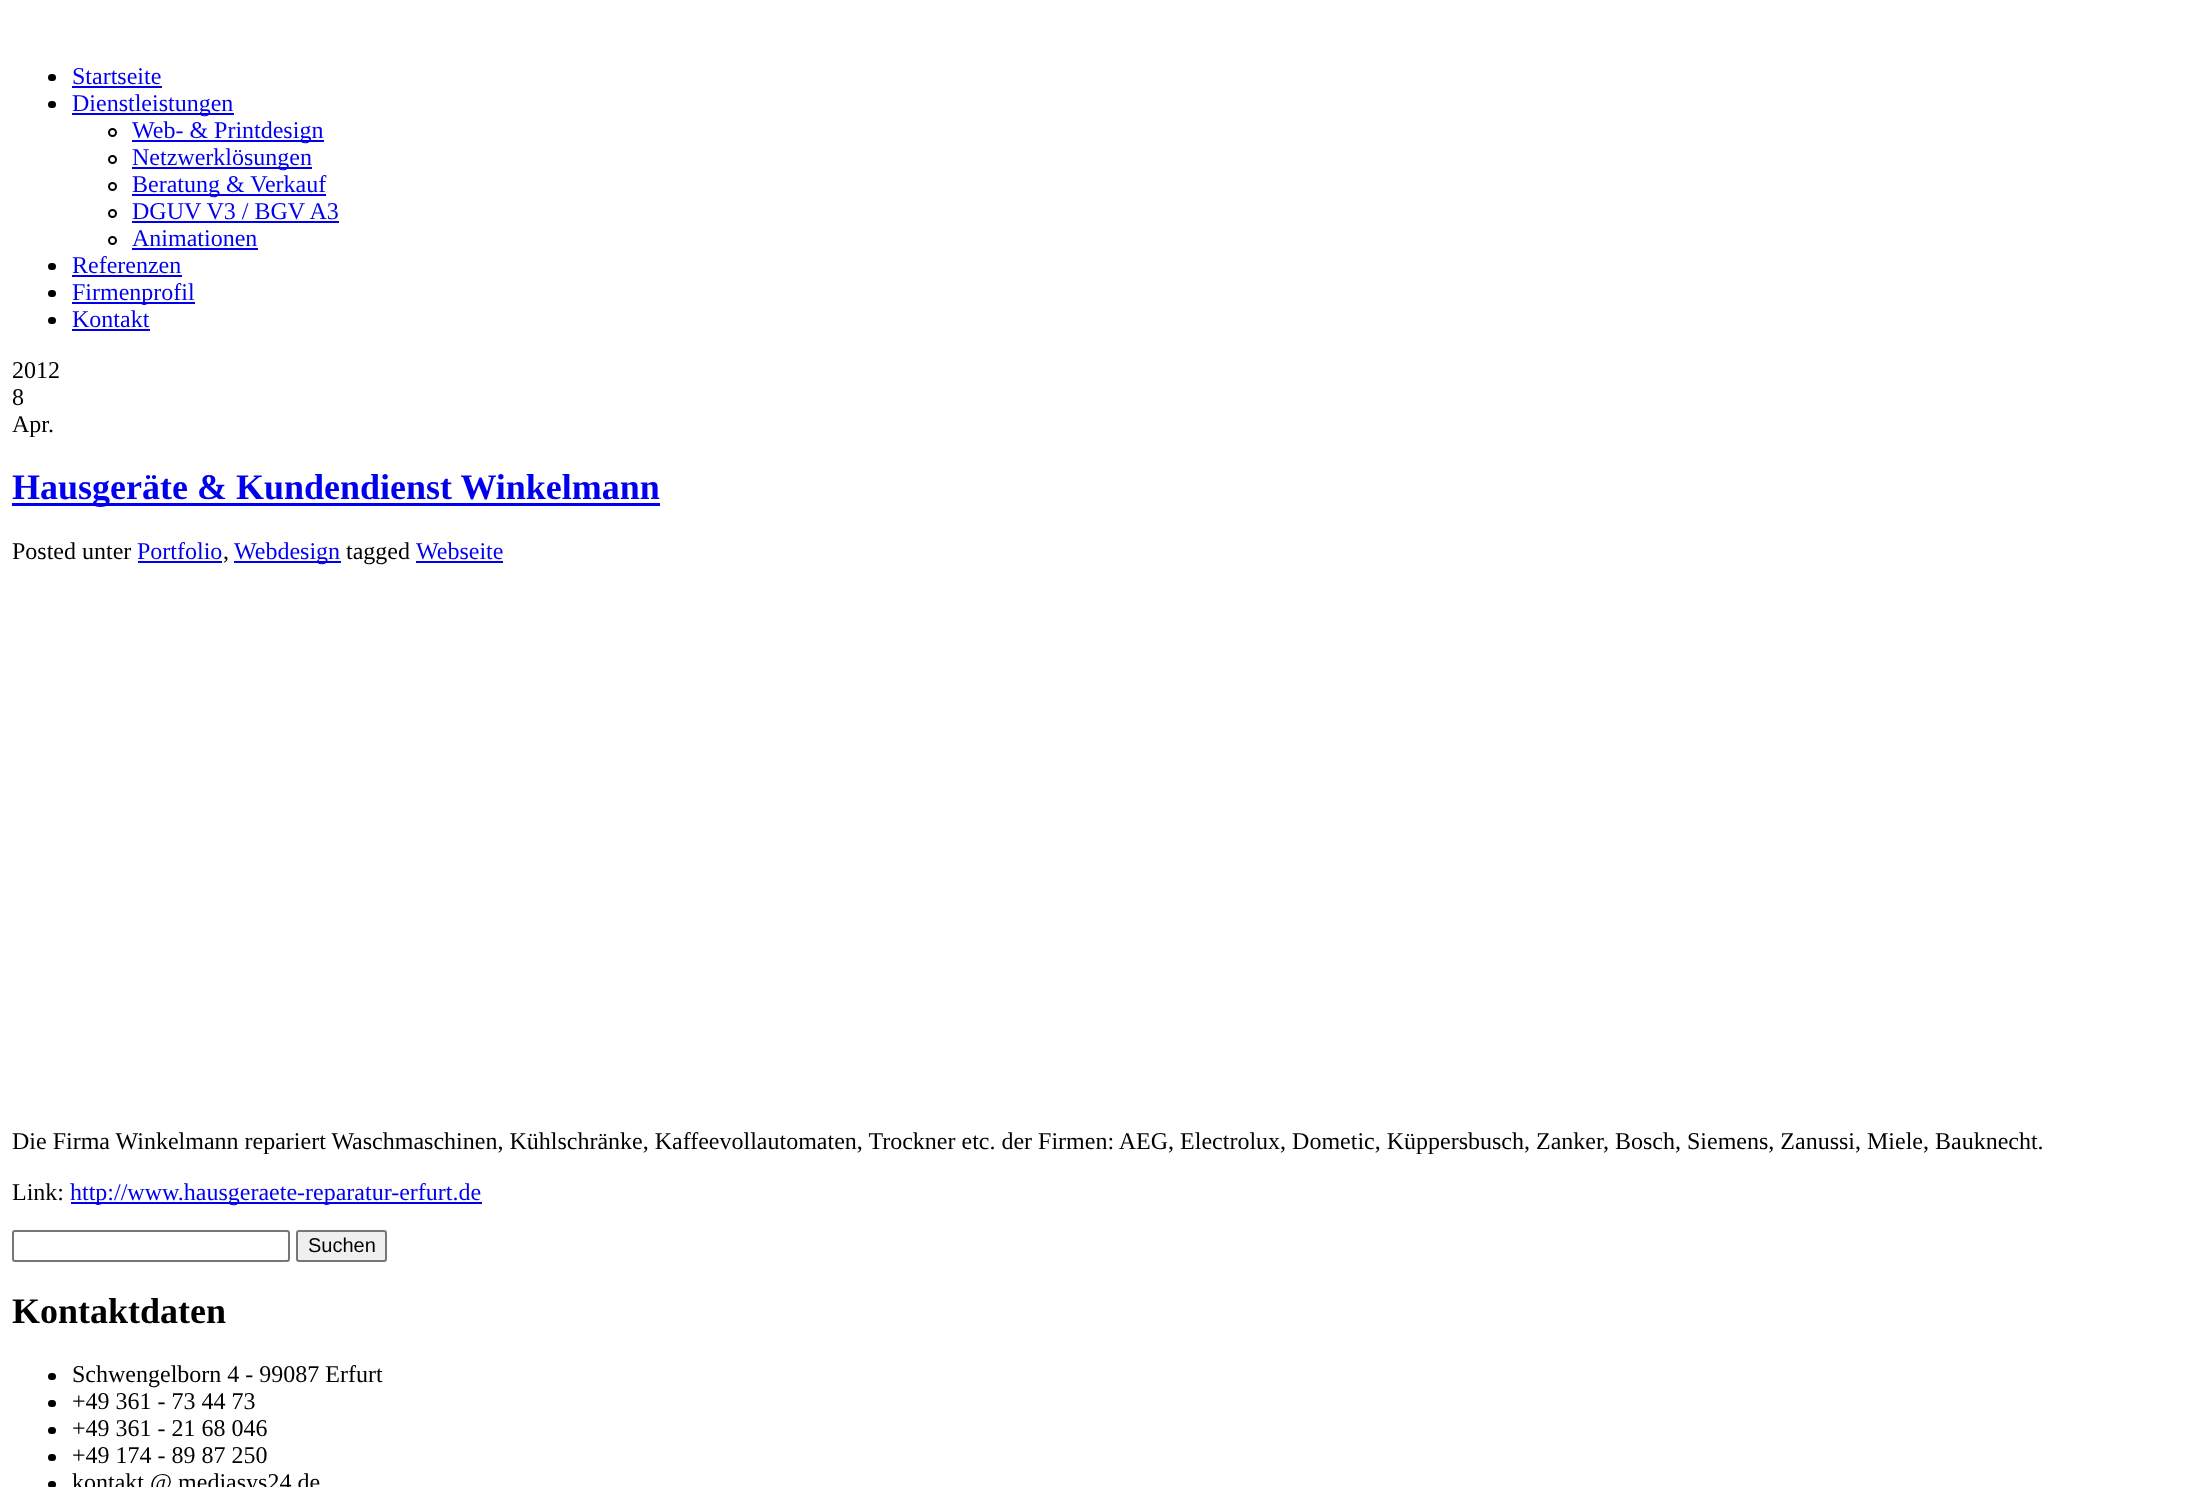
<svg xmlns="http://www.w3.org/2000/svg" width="2185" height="1487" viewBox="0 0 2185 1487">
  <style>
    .t1 { font: 24px Liberation Serif; fill: #00e; }
    .t2 { font: 24px Liberation Serif; fill: #000; }
    .t3 { font: bold 36px Liberation Serif; fill: #00e; }
    .t4 { font: 20px Liberation Sans; fill: #000; }
    .t5 { font: bold 36px Liberation Serif; fill: #000; }
  </style>
  <rect width="100%" height="100%" fill="#fff"/>
  <rect x="48" y="74" width="8" height="7" rx="3.5" fill="#000"/>
  <text x="72" y="84" class="t1">Startseite</text>
  <rect x="72" y="86" width="90" height="2" fill="#00e"/>
  <rect x="48" y="101" width="8" height="7" rx="3.5" fill="#000"/>
  <rect x="72" y="113" width="162" height="2" fill="#00e"/>
  <text x="72" y="111" class="t1">Dienstleistungen</text>
  <circle cx="112.5" cy="132.5" r="3.5" fill="none" stroke="#000" stroke-width="2"/>
  <rect x="132" y="140" width="192" height="2" fill="#00e"/>
  <text x="132" y="138" class="t1">Web- &amp; Printdesign</text>
  <circle cx="112.5" cy="159.5" r="3.5" fill="none" stroke="#000" stroke-width="2"/>
  <rect x="132" y="167" width="180" height="2" fill="#00e"/>
  <text x="132" y="165" class="t1">Netzwerklösungen</text>
  <circle cx="112.5" cy="186.5" r="3.5" fill="none" stroke="#000" stroke-width="2"/>
  <rect x="132" y="194" width="194" height="2" fill="#00e"/>
  <text x="132" y="192" class="t1">Beratung &amp; Verkauf</text>
  <circle cx="112.5" cy="213.5" r="3.5" fill="none" stroke="#000" stroke-width="2"/>
  <text x="132" y="219" class="t1">DGUV V3 / BGV A3</text>
  <rect x="132" y="221" width="207" height="2" fill="#00e"/>
  <circle cx="112.5" cy="240.5" r="3.5" fill="none" stroke="#000" stroke-width="2"/>
  <text x="132" y="246" class="t1">Animationen</text>
  <rect x="132" y="248" width="126" height="2" fill="#00e"/>
  <rect x="48" y="263" width="8" height="7" rx="3.5" fill="#000"/>
  <text x="72" y="273" class="t1">Referenzen</text>
  <rect x="72" y="275" width="110" height="2" fill="#00e"/>
  <rect x="48" y="290" width="8" height="7" rx="3.5" fill="#000"/>
  <rect x="72" y="302" width="123" height="2" fill="#00e"/>
  <text x="72" y="300" class="t1">Firmenprofil</text>
  <rect x="48" y="317" width="8" height="7" rx="3.5" fill="#000"/>
  <text x="72" y="327" class="t1">Kontakt</text>
  <rect x="72" y="329" width="78" height="2" fill="#00e"/>
  <text x="12" y="378" class="t2">2012</text>
  <text x="12" y="405" class="t2">8</text>
  <text x="12" y="432" class="t2">Apr.</text>
  <rect x="12" y="503" width="648" height="3" fill="#00e"/>
  <text x="12" y="499" class="t3">Hausgeräte &amp; Kundendienst Winkelmann</text>
  <text x="12" y="559" class="t2">Posted unter</text>
  <text x="137" y="559" class="t1">Portfolio</text>
  <rect x="138" y="561" width="84" height="2" fill="#00e"/>
  <text x="223" y="559" class="t2">,</text>
  <rect x="234" y="561" width="107" height="2" fill="#00e"/>
  <text x="234" y="559" class="t1">Webdesign</text>
  <text x="346" y="559" class="t2">tagged</text>
  <text x="416" y="559" class="t1">Webseite</text>
  <rect x="416" y="561" width="87" height="2" fill="#00e"/>
  <text x="12" y="1149" class="t2">Die Firma Winkelmann repariert Waschmaschinen, Kühlschränke, Kaffeevollautomaten, Trockner etc. der Firmen: AEG, Electrolux, Dometic, Küppersbusch, Zanker, Bosch, Siemens, Zanussi, Miele, Bauknecht.</text>
  <text x="12" y="1200" class="t2">Link:</text>
  <rect x="71" y="1202" width="411" height="2" fill="#00e"/>
  <text x="70" y="1200" class="t1">http://www.hausgeraete-reparatur-erfurt.de</text>
  <rect x="13" y="1231" width="276" height="30" rx="2" fill="none" stroke="#767676" stroke-width="2"/>
  <rect x="297" y="1231" width="89" height="30" rx="2" fill="#efefef" stroke="#767676" stroke-width="2"/>
  <text x="308" y="1252" class="t4">Suchen</text>
  <text x="12" y="1323" class="t5">Kontaktdaten</text>
  <rect x="48" y="1373" width="8" height="7" rx="3.5" fill="#000"/>
  <text x="72" y="1382" class="t2">Schwengelborn 4 - 99087 Erfurt</text>
  <rect x="48" y="1400" width="8" height="7" rx="3.5" fill="#000"/>
  <text x="72" y="1409" class="t2">+49 361 - 73 44 73</text>
  <rect x="48" y="1427" width="8" height="7" rx="3.5" fill="#000"/>
  <text x="72" y="1436" class="t2">+49 361 - 21 68 046</text>
  <rect x="48" y="1454" width="8" height="7" rx="3.5" fill="#000"/>
  <text x="72" y="1463" class="t2">+49 174 - 89 87 250</text>
  <rect x="48" y="1481" width="8" height="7" rx="3.5" fill="#000"/>
  <text x="72" y="1490" class="t2">kontakt @ mediasys24.de</text>
</svg>
